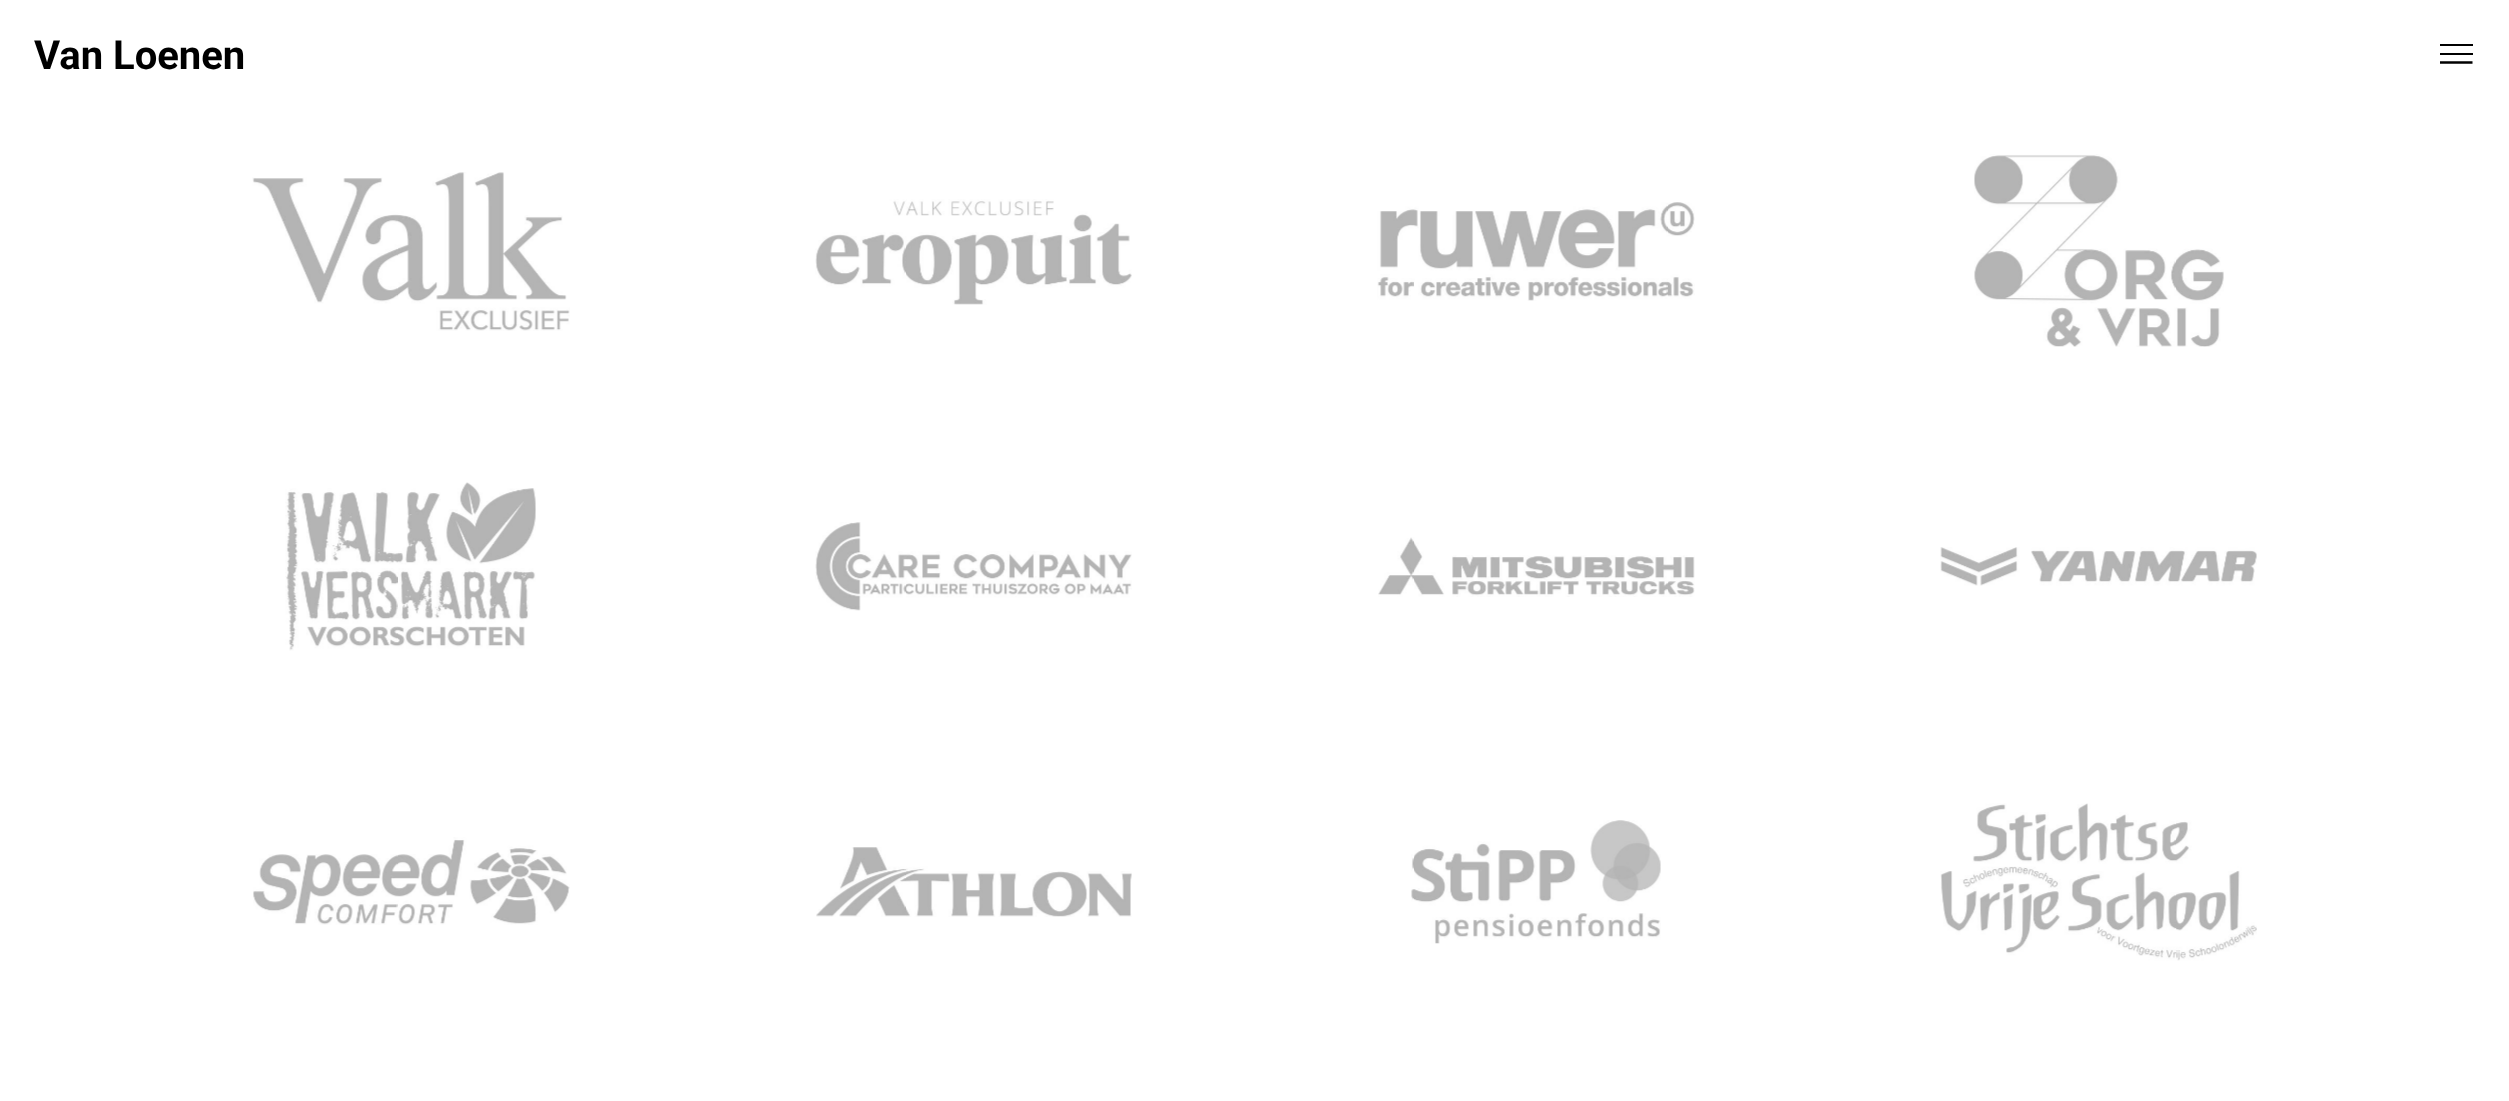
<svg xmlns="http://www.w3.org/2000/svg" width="2509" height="1101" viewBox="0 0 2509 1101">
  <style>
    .t1 { font: bold 40px Roboto; fill: #000; }
  </style>
  <rect width="100%" height="100%" fill="#fff"/>
  <text x="34" y="69" class="t1">Van Loenen</text>
  <rect x="2440" y="44" width="33" height="2" fill="#000"/>
  <path d="M2440 62.5H2472.5" fill="none" stroke="#000" stroke-width="2.3"/>
  <rect x="2440" y="53" width="33" height="2" fill="#000"/>
  <image x="252" y="172" width="318" height="159" href="images/1.png"/>
  <image x="815" y="199" width="317" height="106" href="images/2.png"/>
  <image x="1377" y="202" width="318" height="99" href="images/3.png"/>
  <image x="1974" y="154" width="250" height="193" href="images/4.png"/>
  <image x="285" y="482" width="251" height="169" href="images/5.png"/>
  <image x="815" y="522" width="317" height="89" href="images/6.png"/>
  <image x="1378" y="537" width="317" height="60" href="images/7.png"/>
  <image x="1940" y="547" width="317" height="39" href="images/8.png"/>
  <image x="253" y="837" width="317" height="88" href="images/9.png"/>
  <image x="816" y="847" width="316" height="70" href="images/10.png"/>
  <image x="1411" y="820" width="250" height="124" href="images/11.png"/>
  <image x="1940" y="803" width="317" height="158" href="images/12.png"/>
</svg>
